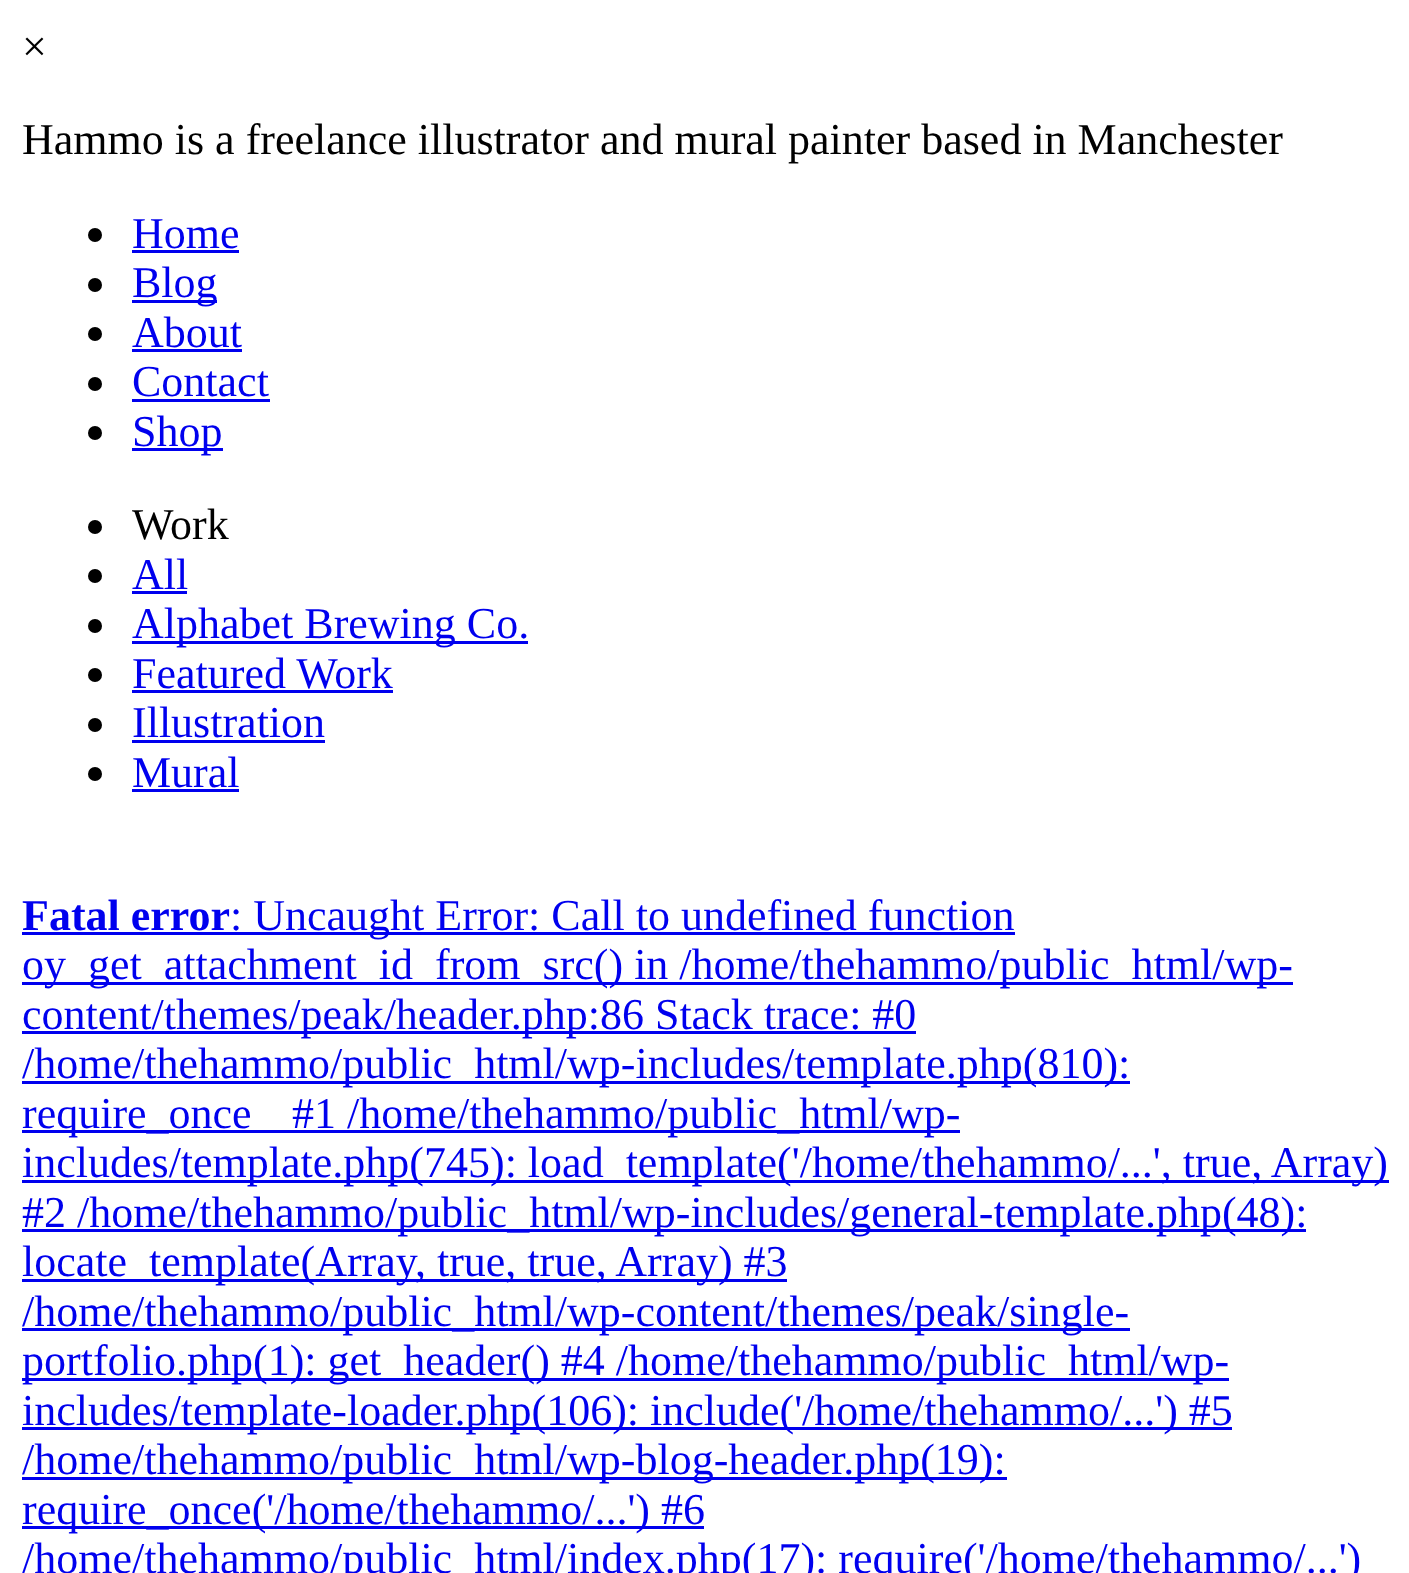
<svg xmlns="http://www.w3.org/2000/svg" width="1409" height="1573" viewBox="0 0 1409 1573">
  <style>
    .t1 { font: 44px Liberation Serif; fill: #000; }
    .t2 { font: 44px Liberation Serif; fill: #00e; }
    .t3 { font: bold 44px Liberation Serif; fill: #00e; }
  </style>
  <rect width="100%" height="100%" fill="#fff"/>
  <text x="22" y="61" class="t1">×</text>
  <text x="22" y="154" class="t1">Hammo is a freelance illustrator and mural painter based in Manchester</text>
  <circle cx="95" cy="235" r="7" fill="#000"/>
  <text x="132" y="248" class="t2">Home</text>
  <rect x="132" y="250" width="107" height="3" fill="#00e"/>
  <circle cx="95" cy="285" r="7" fill="#000"/>
  <rect x="132" y="300" width="85" height="3" fill="#00e"/>
  <text x="132" y="297" class="t2">Blog</text>
  <circle cx="95" cy="334" r="7" fill="#000"/>
  <text x="132" y="347" class="t2">About</text>
  <rect x="132" y="349" width="110" height="3" fill="#00e"/>
  <circle cx="95" cy="384" r="7" fill="#000"/>
  <text x="132" y="396" class="t2">Contact</text>
  <rect x="132" y="399" width="138" height="3" fill="#00e"/>
  <circle cx="95" cy="433" r="7" fill="#000"/>
  <rect x="132" y="448" width="91" height="3" fill="#00e"/>
  <text x="132" y="446" class="t2">Shop</text>
  <circle cx="95" cy="527" r="7" fill="#000"/>
  <text x="132" y="539" class="t1">Work</text>
  <circle cx="95" cy="576" r="7" fill="#000"/>
  <text x="132" y="589" class="t2">All</text>
  <rect x="132" y="591" width="55" height="3" fill="#00e"/>
  <circle cx="95" cy="626" r="7" fill="#000"/>
  <rect x="132" y="641" width="396" height="3" fill="#00e"/>
  <text x="132" y="638" class="t2">Alphabet Brewing Co.</text>
  <circle cx="95" cy="675" r="7" fill="#000"/>
  <text x="132" y="688" class="t2">Featured Work</text>
  <rect x="132" y="690" width="261" height="3" fill="#00e"/>
  <circle cx="95" cy="725" r="7" fill="#000"/>
  <text x="132" y="737" class="t2">Illustration</text>
  <rect x="132" y="740" width="193" height="3" fill="#00e"/>
  <circle cx="95" cy="774" r="7" fill="#000"/>
  <text x="132" y="787" class="t2">Mural</text>
  <rect x="132" y="789" width="107" height="3" fill="#00e"/>
  <text x="22" y="930" class="t3">Fatal error</text>
  <rect x="22" y="932" width="993" height="3" fill="#00e"/>
  <text x="230" y="930" class="t2">: Uncaught Error: Call to undefined function</text>
  <rect x="22" y="982" width="1271" height="3" fill="#00e"/>
  <text x="22" y="979" class="t2">oy_get_attachment_id_from_src() in /home/thehammo/public_html/wp-</text>
  <rect x="22" y="1031" width="894" height="3" fill="#00e"/>
  <text x="22" y="1029" class="t2">content/themes/peak/header.php:86 Stack trace: #0</text>
  <rect x="22" y="1081" width="1108" height="3" fill="#00e"/>
  <text x="22" y="1078" class="t2">/home/thehammo/public_html/wp-includes/template.php(810):</text>
  <rect x="22" y="1130" width="938" height="3" fill="#00e"/>
  <text x="22" y="1128" class="t2">require_once</text>
  <text x="292" y="1128" class="t2">#1 /home/thehammo/public_html/wp-</text>
  <rect x="22" y="1180" width="1367" height="3" fill="#00e"/>
  <text x="22" y="1177" class="t2">includes/template.php(745): load_template('/home/thehammo/...', true, Array)</text>
  <rect x="22" y="1229" width="1284" height="3" fill="#00e"/>
  <text x="22" y="1227" class="t2">#2 /home/thehammo/public_html/wp-includes/general-template.php(48):</text>
  <rect x="22" y="1279" width="765" height="3" fill="#00e"/>
  <text x="22" y="1276" class="t2">locate_template(Array, true, true, Array) #3</text>
  <rect x="22" y="1328" width="1108" height="3" fill="#00e"/>
  <text x="22" y="1326" class="t2">/home/thehammo/public_html/wp-content/themes/peak/single-</text>
  <rect x="22" y="1378" width="1207" height="3" fill="#00e"/>
  <text x="22" y="1375" class="t2">portfolio.php(1): get_header() #4 /home/thehammo/public_html/wp-</text>
  <rect x="22" y="1427" width="1210" height="3" fill="#00e"/>
  <text x="22" y="1425" class="t2">includes/template-loader.php(106): include('/home/thehammo/...') #5</text>
  <rect x="22" y="1477" width="985" height="3" fill="#00e"/>
  <text x="22" y="1474" class="t2">/home/thehammo/public_html/wp-blog-header.php(19):</text>
  <rect x="22" y="1526" width="682" height="3" fill="#00e"/>
  <text x="22" y="1524" class="t2">require_once('/home/thehammo/...') #6</text>
  <text x="22" y="1573" class="t2">/home/thehammo/public_html/index.php(17): require('/home/thehammo/...')</text>
</svg>
